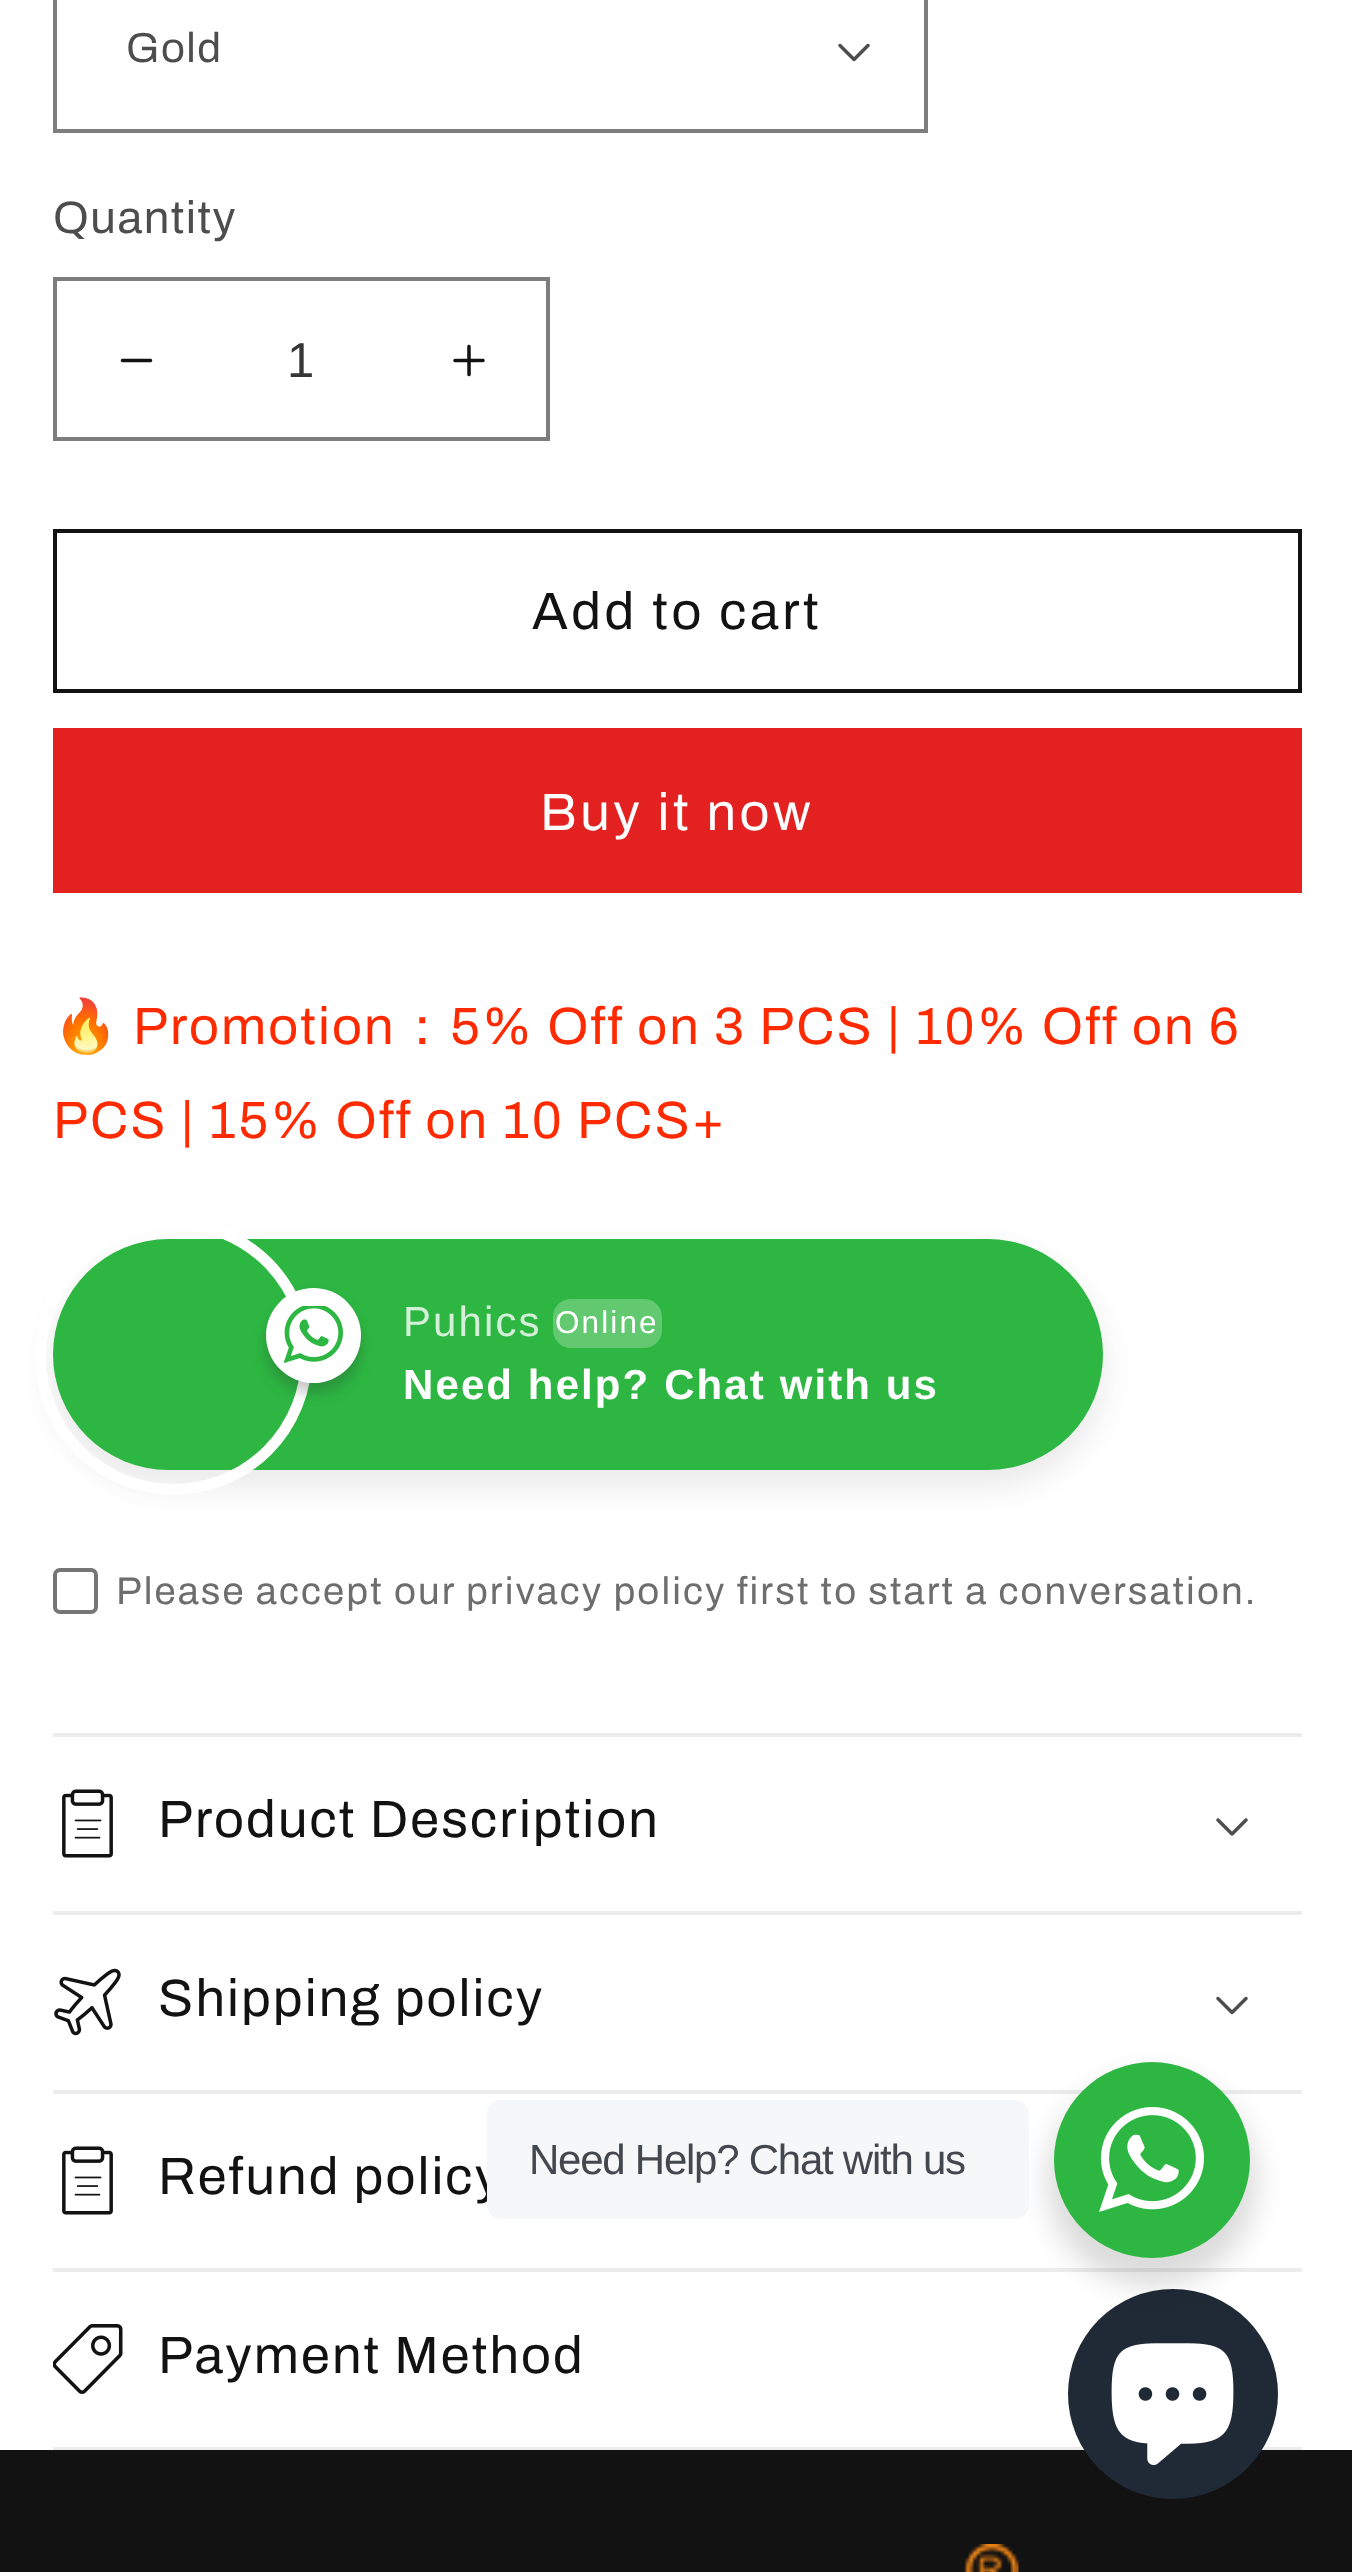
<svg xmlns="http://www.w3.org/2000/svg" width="1352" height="2572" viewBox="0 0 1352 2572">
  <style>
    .t1 { font: 42px Archivo; letter-spacing: 1.5px; fill: #4d4d4d; }
    .t2 { font: 45.5px Archivo; letter-spacing: 1.5px; fill: #4d4d4d; }
    .t3 { font: 49px Liberation Sans; fill: #363636; }
    .t4 { font: 52.5px Archivo; letter-spacing: 3.5px; fill: #121212; }
    .t5 { font: 52.5px Archivo; letter-spacing: 3.5px; fill: #fff; }
    .t6 { font: 52.5px Noto Color Emoji; letter-spacing: 2.1px; fill: #ff2a00; }
    .t7 { font: 52.5px Archivo; letter-spacing: 2.1px; fill: #ff2a00; }
    .t8 { font: 500 52.5px WenQuanYi Zen Hei; letter-spacing: 2.1px; fill: #ff2a00; }
    .t9 { font: 42px Liberation Sans; letter-spacing: 2.1px; fill: #d5f0d9; }
    .t10 { font: 31.5px Liberation Sans; letter-spacing: 2.1px; fill: #fff; }
    .t11 { font: bold 42px Liberation Sans; letter-spacing: 2.1px; fill: #fff; }
    .t12 { font: 38.5px Archivo; letter-spacing: 2.1px; fill: #6d6d6d; }
    .t13 { font: 52.5px Archivo; letter-spacing: 2.1px; fill: #121212; }
    .t14 { font: 42px Liberation Sans; letter-spacing: -1.25px; fill: #43474e; }
  </style>
  <rect width="100%" height="100%" fill="#fff"/>
  <image x="838" y="43" width="32" height="19" href="images/1.png"/>
  <rect x="55" y="-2" width="871" height="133" fill="none" stroke="#7d7d7d" stroke-width="4"/>
  <text x="126" y="62" class="t1">Gold</text>
  <text x="53" y="233" class="t2">Quantity</text>
  <image x="120" y="358" width="33" height="5" href="images/2.png"/>
  <image x="453" y="344" width="32" height="33" href="images/3.png"/>
  <rect x="55" y="279" width="493" height="160" fill="none" stroke="#7d7d7d" stroke-width="4"/>
  <text x="287" y="377" class="t3">1</text>
  <rect x="55" y="531" width="1245" height="160" fill="none" stroke="#121212" stroke-width="4"/>
  <text x="532" y="629" class="t4">Add to cart</text>
  <rect x="53" y="728" width="1249" height="165" fill="#e22120"/>
  <text x="540" y="830" class="t5">Buy it now</text>
  <text x="53" y="1044" class="t6">🔥</text>
  <text x="133" y="1044" class="t7">Promotion</text>
  <text x="396" y="1044" class="t8">：</text>
  <text x="450" y="1044" class="t7">5% Off on 3 PCS | 10% Off on 6</text>
  <text x="53" y="1138" class="t7">PCS | 15% Off on 10 PCS+</text>
  <rect x="49" y="1250" width="1057" height="238" rx="119" fill="#20202517" filter="blur(14px)"/>
  <rect x="53" y="1239" width="1050" height="231" rx="115.5" fill="#2db742"/>
  <circle cx="173.5" cy="1356.5" r="133" fill="none" stroke="#fff" stroke-width="11"/>
  <rect x="266" y="1299" width="95" height="94" rx="47" fill="#27262642" filter="blur(7px)"/>
  <circle cx="313.5" cy="1335.5" r="47.5" fill="#fff"/>
  <image x="284" y="1306" width="59" height="57" href="images/4.png"/>
  <text x="403" y="1336" class="t9">Puhics</text>
  <rect x="553" y="1299" width="109" height="49" rx="18" fill="#62c971"/>
  <text x="555" y="1333" class="t10">Online</text>
  <text x="403" y="1399" class="t11">Need help? Chat with us</text>
  <rect x="55" y="1570" width="41" height="42" rx="5" fill="none" stroke="#767676" stroke-width="4"/>
  <text x="116" y="1604" class="t12">Please accept our privacy policy first to start a conversation.</text>
  <rect x="53" y="1733" width="1249" height="4" fill="#ececec"/>
  <rect x="53" y="1911" width="1249" height="4" fill="#ececec"/>
  <image x="62" y="1789" width="51" height="69" href="images/5.png"/>
  <text x="158" y="1837" class="t13">Product Description</text>
  <image x="1216" y="1818" width="32" height="18" href="images/6.png"/>
  <rect x="53" y="2090" width="1249" height="4" fill="#ececec"/>
  <image x="54" y="1968" width="67" height="68" href="images/7.png"/>
  <text x="158" y="2016" class="t13">Shipping policy</text>
  <image x="1216" y="1996" width="32" height="19" href="images/1.png"/>
  <rect x="53" y="2268" width="1249" height="4" fill="#ececec"/>
  <image x="62" y="2146" width="51" height="69" href="images/5.png"/>
  <text x="158" y="2194" class="t13">Refund policy</text>
  <rect x="53" y="2447" width="1249" height="3" fill="#ececec"/>
  <image x="53" y="2324" width="70" height="70" href="images/8.png"/>
  <text x="158" y="2373" class="t13">Payment Method</text>
  <rect x="0" y="2450" width="1352" height="122" fill="#121212"/>
  <circle cx="1173" cy="2394" r="105" fill="#202a36"/>
  <rect x="1047" y="2076" width="210" height="210" rx="105" fill="#00000024" filter="blur(14px)"/>
  <rect x="487" y="2100" width="542" height="119" rx="14" fill="#f5f7f9"/>
  <text x="529" y="2174" class="t14">Need Help? Chat with us</text>
  <circle cx="1152" cy="2160" r="98" fill="#2db742"/>
  <image x="1099" y="2107" width="105" height="105" href="images/9.png"/>
  <image x="1111" y="2343" width="123" height="122" href="images/10.png"/>
  <image x="963" y="2544" width="56" height="28" href="images/11.png"/>
</svg>
